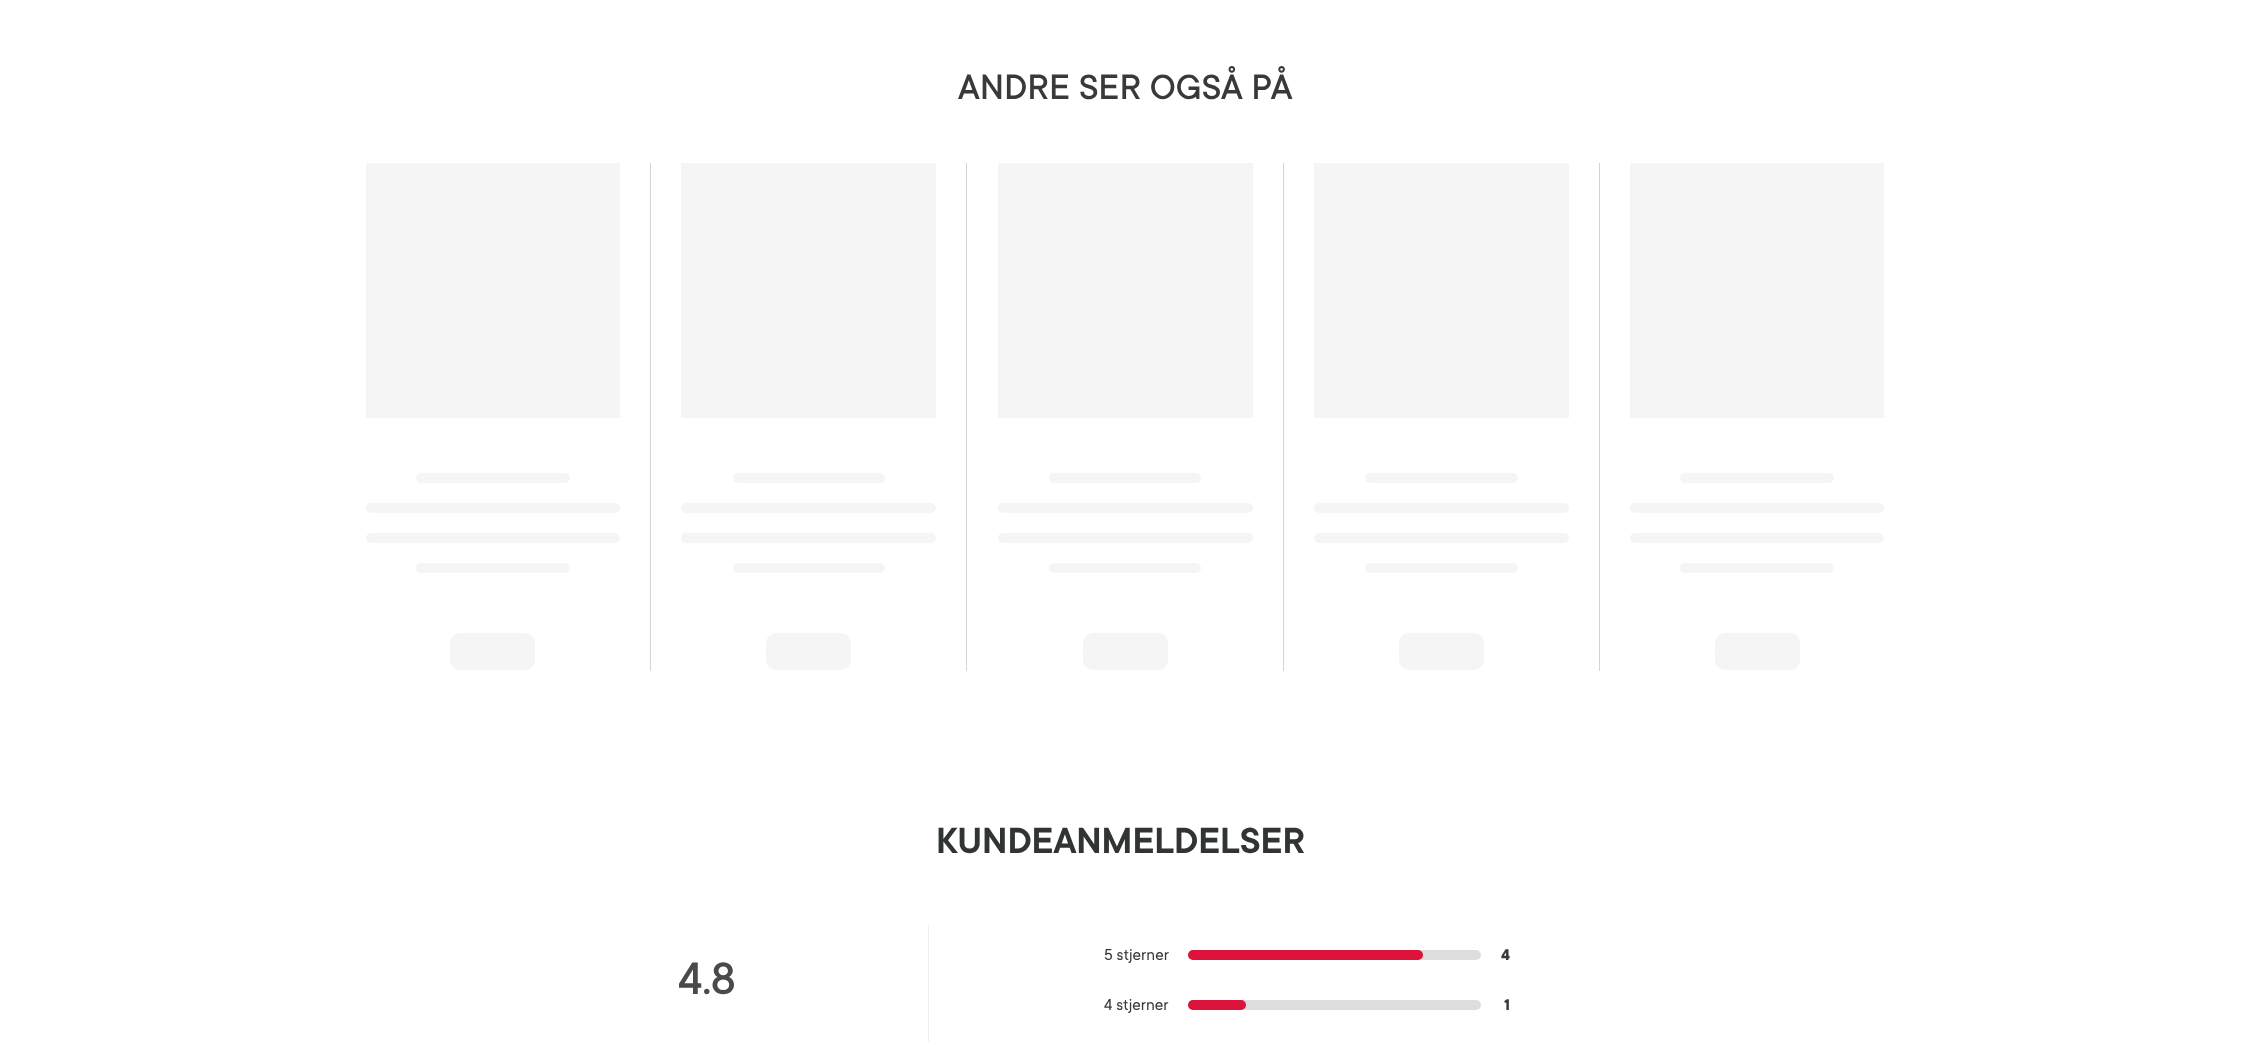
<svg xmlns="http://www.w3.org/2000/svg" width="2251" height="1042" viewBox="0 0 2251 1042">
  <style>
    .t1 { font: 500 38.75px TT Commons; fill: #393939; }
    .t2 { font: 600 40px TT Commons; fill: #303533; }
    .t3 { font: 500 50px TT Commons; fill: #4a4a4a; }
    .t4 { font: 17.5px TT Commons; fill: #393939; }
    .t5 { font: bold 17px TT Commons; fill: #393939; }
  </style>
  <defs>
    <linearGradient id="g1" gradientUnits="userSpaceOnUse" x1="366" y1="673" x2="1381" y2="673"><stop offset="0.25" stop-color="#f5f5f5"/><stop offset="0.5" stop-color="#e9e9e9"/><stop offset="0.75" stop-color="#f5f5f5"/></linearGradient>
    <linearGradient id="g2" gradientUnits="userSpaceOnUse" x1="416" y1="493" x2="1031" y2="493"><stop offset="0.25" stop-color="#f5f5f5"/><stop offset="0.5" stop-color="#e9e9e9"/><stop offset="0.75" stop-color="#f5f5f5"/></linearGradient>
    <linearGradient id="g3" gradientUnits="userSpaceOnUse" x1="366" y1="523" x2="1381" y2="523"><stop offset="0.25" stop-color="#f5f5f5"/><stop offset="0.5" stop-color="#e9e9e9"/><stop offset="0.75" stop-color="#f5f5f5"/></linearGradient>
    <linearGradient id="g4" gradientUnits="userSpaceOnUse" x1="366" y1="553" x2="1381" y2="553"><stop offset="0.25" stop-color="#f5f5f5"/><stop offset="0.5" stop-color="#e9e9e9"/><stop offset="0.75" stop-color="#f5f5f5"/></linearGradient>
    <linearGradient id="g5" gradientUnits="userSpaceOnUse" x1="416" y1="583" x2="1031" y2="583"><stop offset="0.25" stop-color="#f5f5f5"/><stop offset="0.5" stop-color="#e9e9e9"/><stop offset="0.75" stop-color="#f5f5f5"/></linearGradient>
    <linearGradient id="g6" gradientUnits="userSpaceOnUse" x1="450" y1="708" x2="790" y2="708"><stop offset="0.25" stop-color="#f5f5f5"/><stop offset="0.5" stop-color="#e9e9e9"/><stop offset="0.75" stop-color="#f5f5f5"/></linearGradient>
    <linearGradient id="g7" gradientUnits="userSpaceOnUse" x1="681" y1="673" x2="1701" y2="673"><stop offset="0.25" stop-color="#f5f5f5"/><stop offset="0.5" stop-color="#e9e9e9"/><stop offset="0.75" stop-color="#f5f5f5"/></linearGradient>
    <linearGradient id="g8" gradientUnits="userSpaceOnUse" x1="733" y1="493" x2="1343" y2="493"><stop offset="0.25" stop-color="#f5f5f5"/><stop offset="0.5" stop-color="#e9e9e9"/><stop offset="0.75" stop-color="#f5f5f5"/></linearGradient>
    <linearGradient id="g9" gradientUnits="userSpaceOnUse" x1="681" y1="523" x2="1701" y2="523"><stop offset="0.25" stop-color="#f5f5f5"/><stop offset="0.5" stop-color="#e9e9e9"/><stop offset="0.75" stop-color="#f5f5f5"/></linearGradient>
    <linearGradient id="g10" gradientUnits="userSpaceOnUse" x1="681" y1="553" x2="1701" y2="553"><stop offset="0.25" stop-color="#f5f5f5"/><stop offset="0.5" stop-color="#e9e9e9"/><stop offset="0.75" stop-color="#f5f5f5"/></linearGradient>
    <linearGradient id="g11" gradientUnits="userSpaceOnUse" x1="733" y1="583" x2="1343" y2="583"><stop offset="0.25" stop-color="#f5f5f5"/><stop offset="0.5" stop-color="#e9e9e9"/><stop offset="0.75" stop-color="#f5f5f5"/></linearGradient>
    <linearGradient id="g12" gradientUnits="userSpaceOnUse" x1="766" y1="708" x2="1106" y2="708"><stop offset="0.25" stop-color="#f5f5f5"/><stop offset="0.5" stop-color="#e9e9e9"/><stop offset="0.75" stop-color="#f5f5f5"/></linearGradient>
    <linearGradient id="g13" gradientUnits="userSpaceOnUse" x1="998" y1="673" x2="2018" y2="673"><stop offset="0.25" stop-color="#f5f5f5"/><stop offset="0.5" stop-color="#e9e9e9"/><stop offset="0.75" stop-color="#f5f5f5"/></linearGradient>
    <linearGradient id="g14" gradientUnits="userSpaceOnUse" x1="1049" y1="493" x2="1659" y2="493"><stop offset="0.25" stop-color="#f5f5f5"/><stop offset="0.5" stop-color="#e9e9e9"/><stop offset="0.75" stop-color="#f5f5f5"/></linearGradient>
    <linearGradient id="g15" gradientUnits="userSpaceOnUse" x1="998" y1="523" x2="2018" y2="523"><stop offset="0.25" stop-color="#f5f5f5"/><stop offset="0.5" stop-color="#e9e9e9"/><stop offset="0.75" stop-color="#f5f5f5"/></linearGradient>
    <linearGradient id="g16" gradientUnits="userSpaceOnUse" x1="998" y1="553" x2="2018" y2="553"><stop offset="0.25" stop-color="#f5f5f5"/><stop offset="0.5" stop-color="#e9e9e9"/><stop offset="0.75" stop-color="#f5f5f5"/></linearGradient>
    <linearGradient id="g17" gradientUnits="userSpaceOnUse" x1="1049" y1="583" x2="1659" y2="583"><stop offset="0.25" stop-color="#f5f5f5"/><stop offset="0.5" stop-color="#e9e9e9"/><stop offset="0.75" stop-color="#f5f5f5"/></linearGradient>
    <linearGradient id="g18" gradientUnits="userSpaceOnUse" x1="1083" y1="708" x2="1423" y2="708"><stop offset="0.25" stop-color="#f5f5f5"/><stop offset="0.5" stop-color="#e9e9e9"/><stop offset="0.75" stop-color="#f5f5f5"/></linearGradient>
    <linearGradient id="g19" gradientUnits="userSpaceOnUse" x1="1314" y1="673" x2="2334" y2="673"><stop offset="0.25" stop-color="#f5f5f5"/><stop offset="0.5" stop-color="#e9e9e9"/><stop offset="0.75" stop-color="#f5f5f5"/></linearGradient>
    <linearGradient id="g20" gradientUnits="userSpaceOnUse" x1="1365" y1="493" x2="1975" y2="493"><stop offset="0.25" stop-color="#f5f5f5"/><stop offset="0.5" stop-color="#e9e9e9"/><stop offset="0.75" stop-color="#f5f5f5"/></linearGradient>
    <linearGradient id="g21" gradientUnits="userSpaceOnUse" x1="1314" y1="523" x2="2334" y2="523"><stop offset="0.25" stop-color="#f5f5f5"/><stop offset="0.5" stop-color="#e9e9e9"/><stop offset="0.75" stop-color="#f5f5f5"/></linearGradient>
    <linearGradient id="g22" gradientUnits="userSpaceOnUse" x1="1314" y1="553" x2="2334" y2="553"><stop offset="0.25" stop-color="#f5f5f5"/><stop offset="0.5" stop-color="#e9e9e9"/><stop offset="0.75" stop-color="#f5f5f5"/></linearGradient>
    <linearGradient id="g23" gradientUnits="userSpaceOnUse" x1="1365" y1="583" x2="1975" y2="583"><stop offset="0.25" stop-color="#f5f5f5"/><stop offset="0.5" stop-color="#e9e9e9"/><stop offset="0.75" stop-color="#f5f5f5"/></linearGradient>
    <linearGradient id="g24" gradientUnits="userSpaceOnUse" x1="1399" y1="708" x2="1739" y2="708"><stop offset="0.25" stop-color="#f5f5f5"/><stop offset="0.5" stop-color="#e9e9e9"/><stop offset="0.75" stop-color="#f5f5f5"/></linearGradient>
    <linearGradient id="g25" gradientUnits="userSpaceOnUse" x1="1630" y1="673" x2="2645" y2="673"><stop offset="0.25" stop-color="#f5f5f5"/><stop offset="0.5" stop-color="#e9e9e9"/><stop offset="0.75" stop-color="#f5f5f5"/></linearGradient>
    <linearGradient id="g26" gradientUnits="userSpaceOnUse" x1="1680" y1="493" x2="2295" y2="493"><stop offset="0.25" stop-color="#f5f5f5"/><stop offset="0.5" stop-color="#e9e9e9"/><stop offset="0.75" stop-color="#f5f5f5"/></linearGradient>
    <linearGradient id="g27" gradientUnits="userSpaceOnUse" x1="1630" y1="523" x2="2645" y2="523"><stop offset="0.25" stop-color="#f5f5f5"/><stop offset="0.5" stop-color="#e9e9e9"/><stop offset="0.75" stop-color="#f5f5f5"/></linearGradient>
    <linearGradient id="g28" gradientUnits="userSpaceOnUse" x1="1630" y1="553" x2="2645" y2="553"><stop offset="0.25" stop-color="#f5f5f5"/><stop offset="0.5" stop-color="#e9e9e9"/><stop offset="0.75" stop-color="#f5f5f5"/></linearGradient>
    <linearGradient id="g29" gradientUnits="userSpaceOnUse" x1="1680" y1="583" x2="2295" y2="583"><stop offset="0.25" stop-color="#f5f5f5"/><stop offset="0.5" stop-color="#e9e9e9"/><stop offset="0.75" stop-color="#f5f5f5"/></linearGradient>
    <linearGradient id="g30" gradientUnits="userSpaceOnUse" x1="1715" y1="708" x2="2055" y2="708"><stop offset="0.25" stop-color="#f5f5f5"/><stop offset="0.5" stop-color="#e9e9e9"/><stop offset="0.75" stop-color="#f5f5f5"/></linearGradient>
  </defs>
  <rect width="100%" height="100%" fill="#fff"/>
  <text x="958" y="99" class="t1">ANDRE SER OGSÅ PÅ</text>
  <rect x="650" y="163" width="1" height="508" fill="#d4d4d4"/>
  <rect x="366" y="163" width="254" height="255" fill="url(#g1)"/>
  <rect x="416" y="473" width="154" height="10" rx="5" fill="url(#g2)"/>
  <rect x="366" y="503" width="254" height="10" rx="5" fill="url(#g3)"/>
  <rect x="366" y="533" width="254" height="10" rx="5" fill="url(#g4)"/>
  <rect x="416" y="563" width="154" height="10" rx="5" fill="url(#g5)"/>
  <rect x="450" y="633" width="85" height="37" rx="10" fill="url(#g6)"/>
  <rect x="966" y="163" width="1" height="508" fill="#d4d4d4"/>
  <rect x="681" y="163" width="255" height="255" fill="url(#g7)"/>
  <rect x="733" y="473" width="152" height="10" rx="5" fill="url(#g8)"/>
  <rect x="681" y="503" width="255" height="10" rx="5" fill="url(#g9)"/>
  <rect x="681" y="533" width="255" height="10" rx="5" fill="url(#g10)"/>
  <rect x="733" y="563" width="152" height="10" rx="5" fill="url(#g11)"/>
  <rect x="766" y="633" width="85" height="37" rx="10" fill="url(#g12)"/>
  <rect x="1283" y="163" width="1" height="508" fill="#d4d4d4"/>
  <rect x="998" y="163" width="255" height="255" fill="url(#g13)"/>
  <rect x="1049" y="473" width="152" height="10" rx="5" fill="url(#g14)"/>
  <rect x="998" y="503" width="255" height="10" rx="5" fill="url(#g15)"/>
  <rect x="998" y="533" width="255" height="10" rx="5" fill="url(#g16)"/>
  <rect x="1049" y="563" width="152" height="10" rx="5" fill="url(#g17)"/>
  <rect x="1083" y="633" width="85" height="37" rx="10" fill="url(#g18)"/>
  <rect x="1599" y="163" width="1" height="508" fill="#d4d4d4"/>
  <rect x="1314" y="163" width="255" height="255" fill="url(#g19)"/>
  <rect x="1365" y="473" width="153" height="10" rx="5" fill="url(#g20)"/>
  <rect x="1314" y="503" width="255" height="10" rx="5" fill="url(#g21)"/>
  <rect x="1314" y="533" width="255" height="10" rx="5" fill="url(#g22)"/>
  <rect x="1365" y="563" width="153" height="10" rx="5" fill="url(#g23)"/>
  <rect x="1399" y="633" width="85" height="37" rx="10" fill="url(#g24)"/>
  <rect x="1630" y="163" width="254" height="255" fill="url(#g25)"/>
  <rect x="1680" y="473" width="154" height="10" rx="5" fill="url(#g26)"/>
  <rect x="1630" y="503" width="254" height="10" rx="5" fill="url(#g27)"/>
  <rect x="1630" y="533" width="254" height="10" rx="5" fill="url(#g28)"/>
  <rect x="1680" y="563" width="154" height="10" rx="5" fill="url(#g29)"/>
  <rect x="1715" y="633" width="85" height="37" rx="10" fill="url(#g30)"/>
  <text x="936" y="853" class="t2">KUNDEANMELDELSER</text>
  <rect x="928" y="925" width="1" height="117" fill="#eee"/>
  <text x="678" y="994" class="t3">4.8</text>
  <text x="1104" y="960" class="t4">5 stjerner</text>
  <rect x="1188" y="950" width="293" height="10" rx="5" fill="#ddd"/>
  <rect x="1188" y="950" width="235" height="10" rx="5" fill="#dc143c"/>
  <text x="1501" y="960" class="t5">4</text>
  <text x="1104" y="1010" class="t4">4 stjerner</text>
  <rect x="1188" y="1000" width="293" height="10" rx="5" fill="#ddd"/>
  <rect x="1188" y="1000" width="58" height="10" rx="5" fill="#dc143c"/>
  <text x="1504" y="1010" class="t5">1</text>
</svg>
